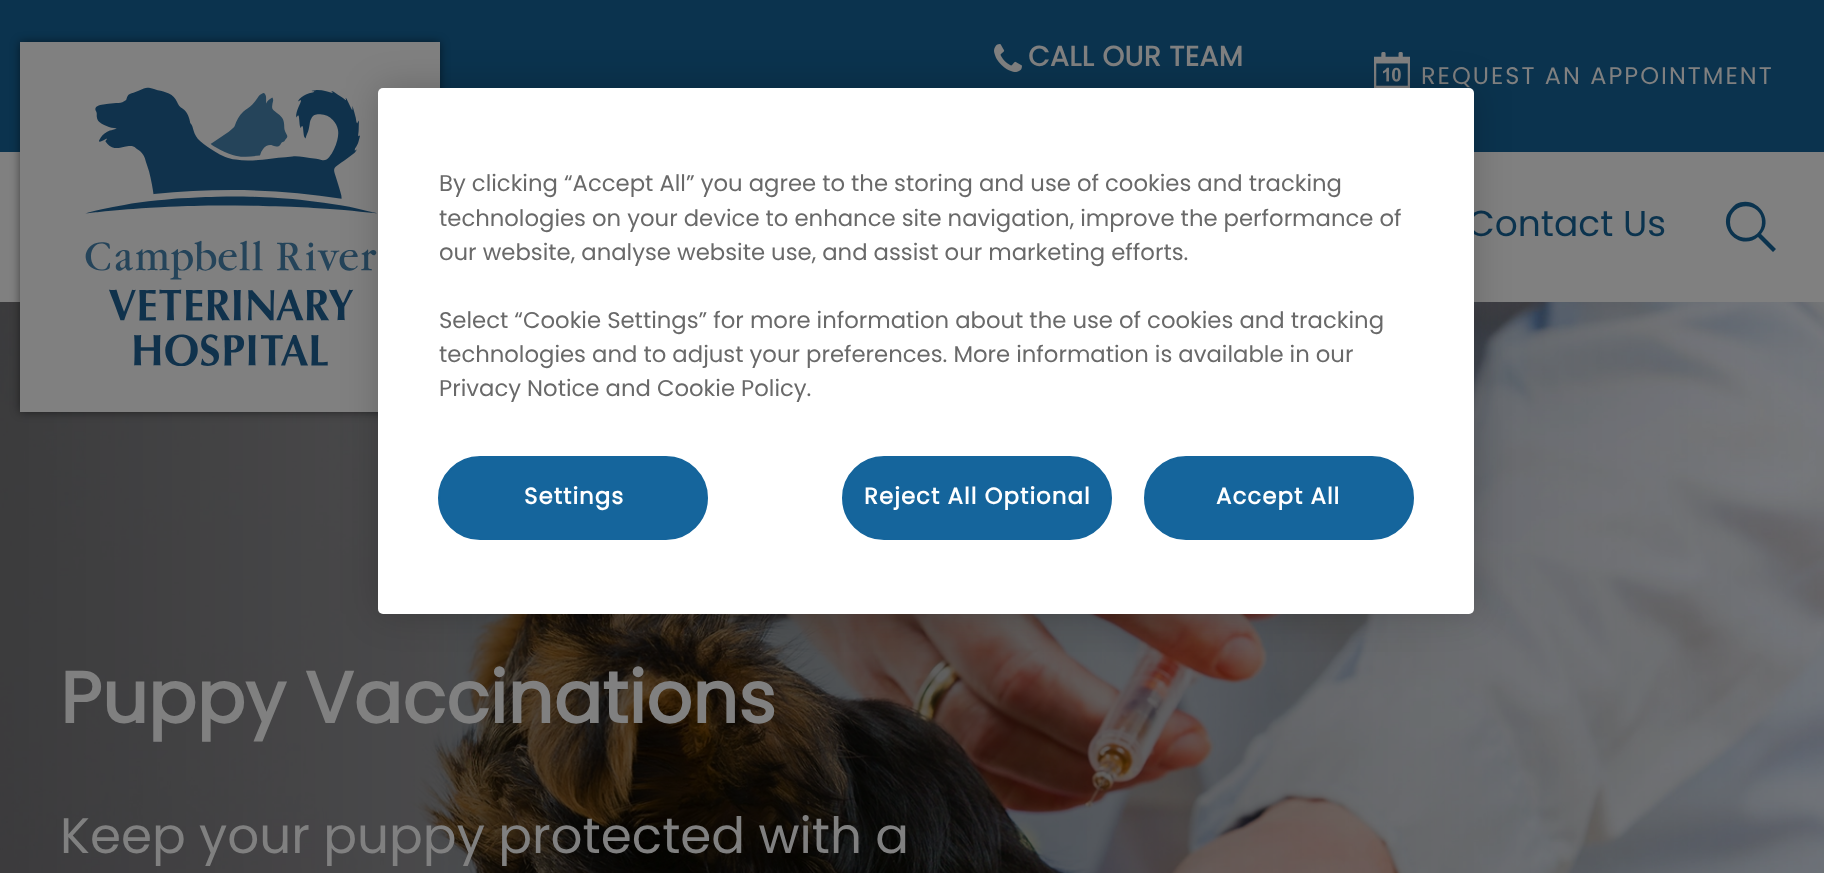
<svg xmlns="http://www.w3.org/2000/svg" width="1824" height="873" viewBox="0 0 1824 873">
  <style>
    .t1 { font: bold 28px Poppins; letter-spacing: 0.4px; fill: #808080; }
    .t2 { font: 24px Poppins; letter-spacing: 2px; fill: #808080; }
    .t3 { font: 36px Poppins; fill: #0b334e; }
    .t4 { font: bold 72px Poppins; fill: #808080; }
    .t5 { font: 50px Poppins; fill: #808080; }
    .t6 { font: 22.75px Poppins; fill: #696969; }
    .t7 { font: bold 22.75px Poppins; letter-spacing: 1.1px; fill: #fff; }
  </style>
  <rect width="100%" height="100%" fill="#808080"/>
  <rect x="0" y="0" width="1824" height="152" fill="#0b334e"/>
  <image x="0" y="302" width="1824" height="571" href="images/4.png"/>
  <rect x="20" y="42" width="420" height="370" fill="#00000080" filter="blur(5px)"/>
  <rect x="20" y="42" width="420" height="370" fill="#808080"/>
  <image x="85" y="87" width="292" height="279" href="images/1.png"/>
  <image x="994" y="44" width="28" height="28" href="images/2.png"/>
  <text x="1028" y="66" class="t1">CALL OUR TEAM</text>
  <image x="1374" y="52" width="36" height="36" href="images/3.png"/>
  <text x="1421" y="84" class="t2">REQUEST AN APPOINTMENT</text>
  <text x="1467" y="236" class="t3">Contact Us</text>
  <path d="M1776 249L1761 234C1775 218 1755 194 1736 204C1732 207 1729 211 1727 215C1725 221 1726 227 1729 232C1735 242 1749 245 1758 237L1773 252ZM1730 222C1730 201 1762 201 1762 222C1762 243 1730 243 1730 222Z" fill="#0b334e"/>
  <text x="60" y="723" class="t4">Puppy Vaccinations</text>
  <text x="60" y="853" class="t5">Keep your puppy protected with a</text>
  <rect x="378" y="88" width="1096" height="526" rx="5" fill="#00000033" filter="blur(18px)"/>
  <rect x="378" y="88" width="1096" height="526" rx="5" fill="#fff"/>
  <text x="439" y="191" class="t6">By clicking “Accept All” you agree to the storing and use of cookies and tracking</text>
  <text x="439" y="226" class="t6">technologies on your device to enhance site navigation, improve the performance of</text>
  <text x="439" y="260" class="t6">our website, analyse website use, and assist our marketing efforts.</text>
  <text x="439" y="328" class="t6">Select “Cookie Settings” for more information about the use of cookies and tracking</text>
  <text x="439" y="362" class="t6">technologies and to adjust your preferences. More information is available in our</text>
  <text x="439" y="396" class="t6">Privacy Notice and Cookie Policy.</text>
  <rect x="439" y="457" width="268" height="82" rx="41" fill="#15659c" stroke="#15659c" stroke-width="2"/>
  <text x="524" y="504" class="t7">Settings</text>
  <rect x="843" y="457" width="268" height="82" rx="41" fill="#15659c" stroke="#15659c" stroke-width="2"/>
  <text x="864" y="504" class="t7">Reject All Optional</text>
  <rect x="1145" y="457" width="268" height="82" rx="41" fill="#15659c" stroke="#15659c" stroke-width="2"/>
  <text x="1216" y="504" class="t7">Accept All</text>
</svg>
